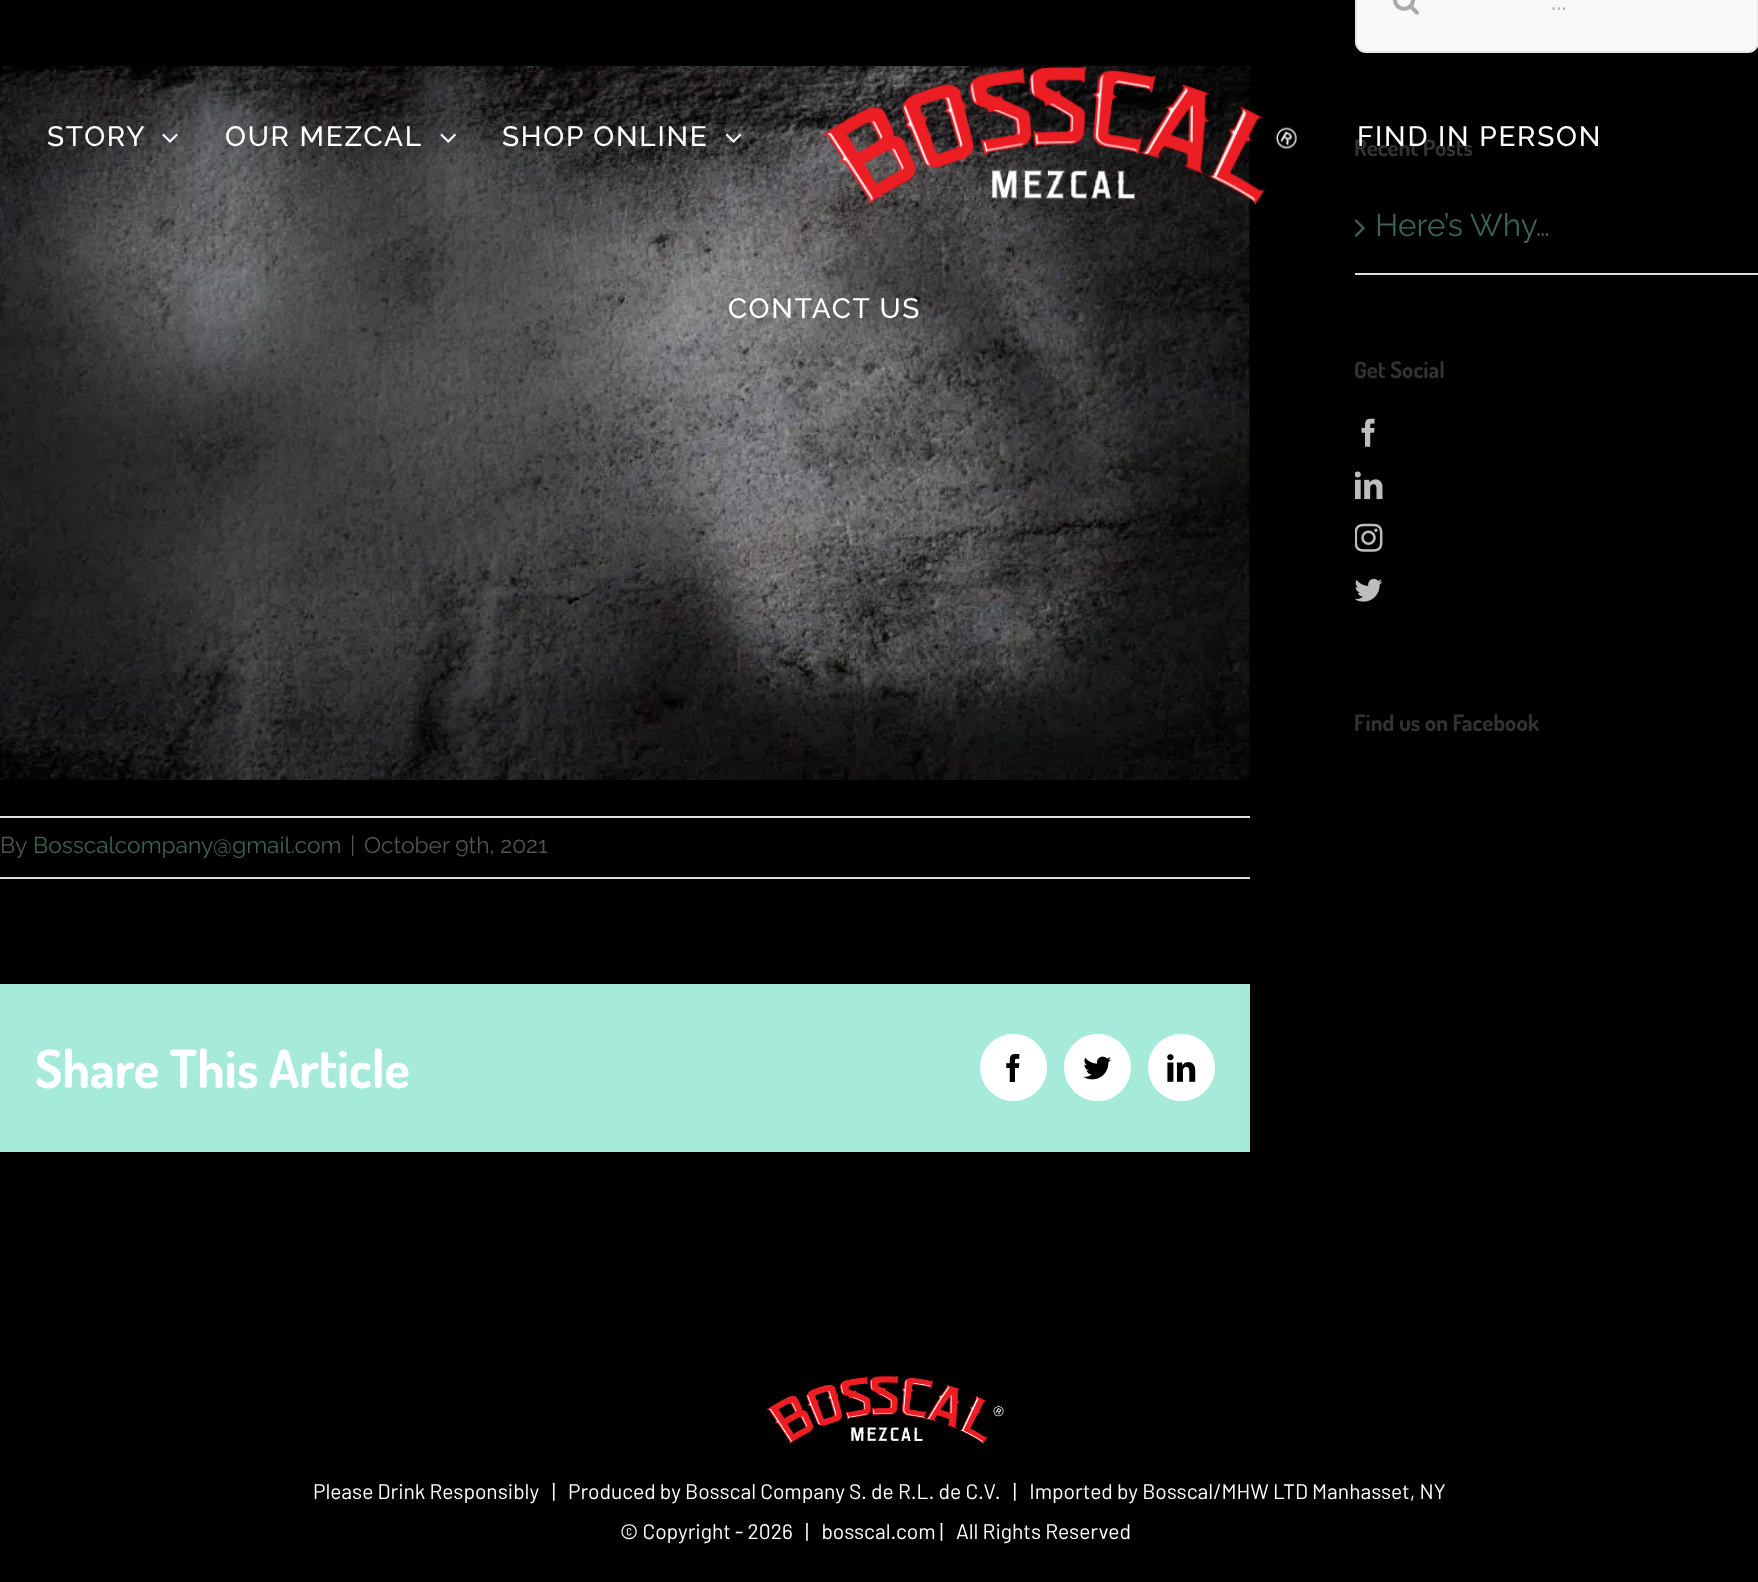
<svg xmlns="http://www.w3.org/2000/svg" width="1758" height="1582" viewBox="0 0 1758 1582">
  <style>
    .t1 { font: 28px Raleway; fill: #aaa9a9; }
    .t2 { font: bold 22.75px Dosis; fill: #333; }
    .t3 { font: 31.5px Raleway; fill: #3b6459; }
    .t4 { font: 22.75px Raleway; fill: #545454; }
    .t5 { font: 22.75px Raleway; fill: #3b6459; }
    .t6 { font: bold 52.5px Dosis; fill: #fff; }
    .t7 { font: 500 28px Raleway; letter-spacing: 1.75px; fill: #fff; }
    .t8 { font: 21px Barlow; fill: #fff; }
  </style>
  <rect width="100%" height="100%" fill="#000"/>
  <rect x="1356" y="-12" width="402" height="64" rx="10" fill="#f8f8f8" stroke="#e8e8e8" stroke-width="2"/>
  <image x="1393" y="0" width="26" height="15" href="images/1.png"/>
  <text x="1551" y="10" class="t1">...</text>
  <text x="1354" y="156" class="t2">Recent Posts</text>
  <rect x="1355" y="273" width="403" height="2" fill="#e0dede"/>
  <image x="1354" y="219" width="11" height="18" href="images/2.png"/>
  <text x="1375" y="236" class="t3">Here’s Why…</text>
  <text x="1354" y="378" class="t2">Get Social</text>
  <image x="1361" y="418" width="14" height="29" href="images/3.png"/>
  <image x="1355" y="471" width="28" height="29" href="images/4.png"/>
  <image x="1355" y="523" width="28" height="29" href="images/5.png"/>
  <image x="1355" y="578" width="28" height="24" href="images/6.png"/>
  <text x="1354" y="731" class="t2">Find us on Facebook</text>
  <image x="0" y="66" width="1250" height="714" href="images/7.png"/>
  <rect x="0" y="816" width="1250" height="2" fill="#e0dede"/>
  <rect x="0" y="877" width="1250" height="2" fill="#e0dede"/>
  <text x="0" y="853" class="t4">By</text>
  <text x="33" y="853" class="t5">Bosscalcompany@gmail.com</text>
  <text x="350" y="853" class="t4">|</text>
  <text x="364" y="853" class="t4">October 9th, 2021</text>
  <rect x="0" y="984" width="1250" height="168" fill="#a6ead9"/>
  <text x="35" y="1088" class="t6">Share This Article</text>
  <circle cx="1013.5" cy="1067.5" r="32.5" fill="#fff" stroke="#fff" stroke-width="2"/>
  <image x="1006" y="1054" width="14" height="28" href="images/8.png"/>
  <circle cx="1097.5" cy="1067.5" r="32.5" fill="#fff" stroke="#fff" stroke-width="2"/>
  <image x="1083" y="1056" width="29" height="24" href="images/9.png"/>
  <circle cx="1181.5" cy="1067.5" r="32.5" fill="#fff" stroke="#fff" stroke-width="2"/>
  <image x="1167" y="1054" width="29" height="28" href="images/10.png"/>
  <text x="47" y="146" class="t7">STORY</text>
  <image x="162" y="133" width="16" height="10" href="images/11.png"/>
  <text x="225" y="146" class="t7">OUR MEZCAL</text>
  <image x="440" y="133" width="16" height="10" href="images/12.png"/>
  <text x="502" y="146" class="t7">SHOP ONLINE</text>
  <image x="725" y="133" width="17" height="10" href="images/13.png"/>
  <image x="821" y="65" width="476" height="141" href="images/14.png"/>
  <text x="1357" y="146" class="t7">FIND IN PERSON</text>
  <text x="728" y="318" class="t7">CONTACT US</text>
  <image x="766" y="1375" width="238" height="70" href="images/15.png"/>
  <text x="313" y="1499" class="t8">Please Drink Responsibly</text>
  <text x="552" y="1499" class="t8">|</text>
  <text x="568" y="1499" class="t8" xml:space="preserve">Produced by Bosscal Company S. de R.L. de C.V.   |   Imported by Bosscal/MHW LTD Manhasset, NY</text>
  <text x="620" y="1539" class="t8" xml:space="preserve">© Copyright - 2026   |   bosscal.com |   All Rights Reserved</text>
</svg>
